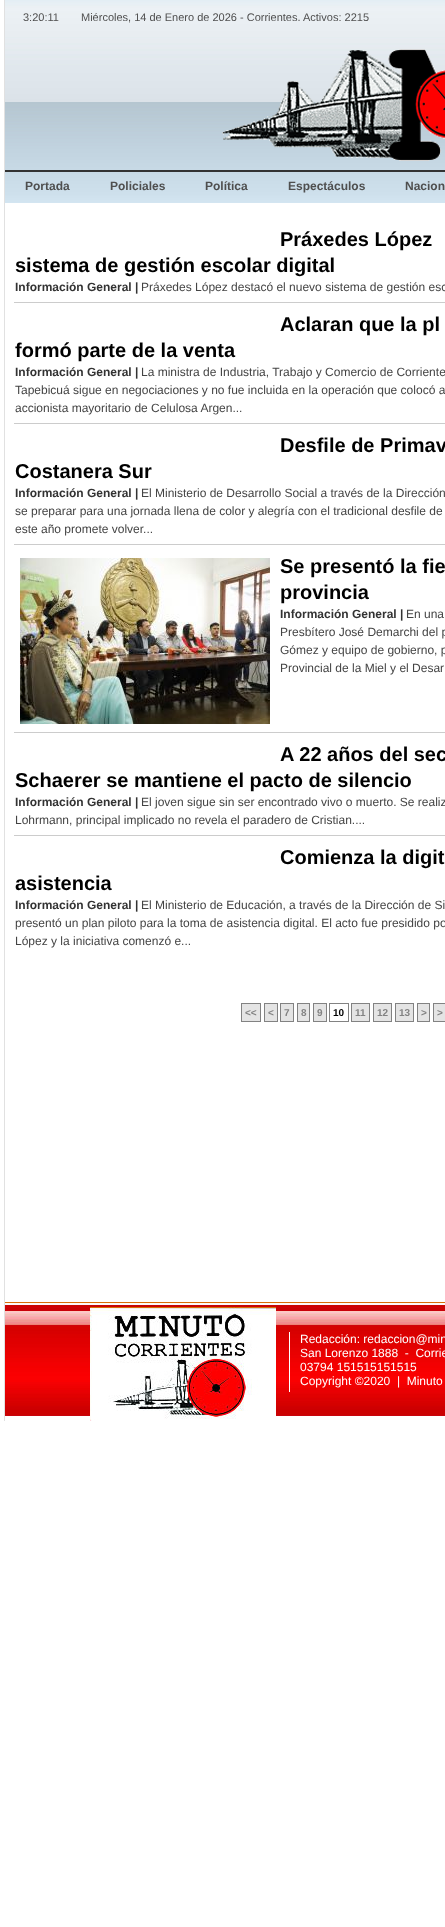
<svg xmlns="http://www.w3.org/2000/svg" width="445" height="1927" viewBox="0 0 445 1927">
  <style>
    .t1 { font: 11px Liberation Sans; fill: #4f4f4f; }
    .t2 { font: bold 12px Liberation Sans; fill: #4f4f4f; }
    .t3 { font: bold 20px Liberation Sans; fill: #000; }
    .t4 { font: bold 12px Liberation Sans; fill: #333; }
    .t5 { font: 12px Liberation Sans; fill: #444; }
    .t6 { font: bold 10px Liberation Sans; fill: #828282; }
    .t7 { font: bold 10px Liberation Sans; fill: #000; }
    .t8 { font: 12px Liberation Sans; fill: #fff; }
  </style>
  <rect width="100%" height="100%" fill="#fff"/>
  <rect x="4" y="0" width="1" height="1421" fill="#e1e1e1"/>
  <image x="5" y="0" width="440" height="203" href="images/1.png"/>
  <text x="23" y="21" class="t1">3:20:11</text>
  <text x="81" y="21" class="t1">Miércoles, 14 de Enero de 2026 - Corrientes. Activos: 2215</text>
  <image x="222" y="49" width="223" height="112" href="images/2.png"/>
  <rect x="5" y="170" width="440" height="2" fill="#333"/>
  <text x="25" y="190" class="t2">Portada</text>
  <text x="110" y="190" class="t2">Policiales</text>
  <text x="205" y="190" class="t2">Política</text>
  <text x="288" y="190" class="t2">Espectáculos</text>
  <text x="405" y="190" class="t2">Nacion</text>
  <text x="280" y="246" class="t3">Práxedes López</text>
  <text x="15" y="272" class="t3">sistema de gestión escolar digital</text>
  <text x="15" y="291" class="t4">Información General |</text>
  <text x="141" y="291" class="t5">Práxedes López destacó el nuevo sistema de gestión esc</text>
  <rect x="14" y="302" width="431" height="1" fill="#ccc"/>
  <text x="280" y="331" class="t3">Aclaran que la pl</text>
  <text x="15" y="357" class="t3">formó parte de la venta</text>
  <text x="15" y="376" class="t4">Información General |</text>
  <text x="141" y="376" class="t5">La ministra de Industria, Trabajo y Comercio de Corriente</text>
  <text x="15" y="394" class="t5">Tapebicuá sigue en negociaciones y no fue incluida en la operación que colocó a</text>
  <text x="15" y="412" class="t5">accionista mayoritario de Celulosa Argen...</text>
  <rect x="14" y="423" width="431" height="1" fill="#ccc"/>
  <text x="280" y="452" class="t3">Desfile de Primav</text>
  <text x="15" y="478" class="t3">Costanera Sur</text>
  <text x="15" y="497" class="t4">Información General |</text>
  <text x="141" y="497" class="t5">El Ministerio de Desarrollo Social a través de la Dirección</text>
  <text x="15" y="515" class="t5">se preparar para una jornada llena de color y alegría con el tradicional desfile de</text>
  <text x="15" y="533" class="t5">este año promete volver...</text>
  <rect x="14" y="544" width="431" height="1" fill="#ccc"/>
  <image x="20" y="558" width="250" height="166" href="images/3.png"/>
  <text x="280" y="573" class="t3">Se presentó la fie</text>
  <text x="280" y="599" class="t3">provincia</text>
  <text x="280" y="618" class="t4">Información General |</text>
  <text x="406" y="618" class="t5">En una</text>
  <text x="280" y="636" class="t5">Presbítero José Demarchi del p</text>
  <text x="280" y="654" class="t5">Gómez y equipo de gobierno, p</text>
  <text x="280" y="672" class="t5">Provincial de la Miel y el Desar</text>
  <rect x="14" y="732" width="431" height="1" fill="#ccc"/>
  <text x="280" y="761" class="t3">A 22 años del sec</text>
  <text x="15" y="787" class="t3">Schaerer se mantiene el pacto de silencio</text>
  <text x="15" y="806" class="t4">Información General |</text>
  <text x="141" y="806" class="t5">El joven sigue sin ser encontrado vivo o muerto. Se realiz</text>
  <text x="15" y="824" class="t5">Lohrmann, principal implicado no revela el paradero de Cristian....</text>
  <rect x="14" y="835" width="431" height="1" fill="#ccc"/>
  <text x="280" y="864" class="t3">Comienza la digit</text>
  <text x="15" y="890" class="t3">asistencia</text>
  <text x="15" y="909" class="t4">Información General |</text>
  <text x="141" y="909" class="t5">El Ministerio de Educación, a través de la Dirección de Si</text>
  <text x="15" y="927" class="t5">presentó un plan piloto para la toma de asistencia digital. El acto fue presidido po</text>
  <text x="15" y="945" class="t5">López y la iniciativa comenzó e...</text>
  <rect x="241.5" y="1003.5" width="19" height="18" fill="#e4e4e4" stroke="#828282"/>
  <text x="245" y="1016" class="t6">&lt;&lt;</text>
  <rect x="264.5" y="1003.5" width="13" height="18" fill="#e4e4e4" stroke="#828282"/>
  <text x="268" y="1016" class="t6">&lt;</text>
  <rect x="280.5" y="1003.5" width="13" height="18" fill="#e4e4e4" stroke="#828282"/>
  <text x="284" y="1016" class="t6">7</text>
  <rect x="297.5" y="1003.5" width="12" height="18" fill="#e4e4e4" stroke="#828282"/>
  <text x="301" y="1016" class="t6">8</text>
  <rect x="313.5" y="1003.5" width="13" height="18" fill="#e4e4e4" stroke="#828282"/>
  <text x="317" y="1016" class="t6">9</text>
  <rect x="329.5" y="1003.5" width="19" height="18" fill="none" stroke="#828282"/>
  <text x="333" y="1016" class="t7">10</text>
  <rect x="351.5" y="1003.5" width="18" height="18" fill="#e4e4e4" stroke="#828282"/>
  <text x="355" y="1016" class="t6">11</text>
  <rect x="373.5" y="1003.5" width="18" height="18" fill="#e4e4e4" stroke="#828282"/>
  <text x="377" y="1016" class="t6">12</text>
  <rect x="395.5" y="1003.5" width="18" height="18" fill="#e4e4e4" stroke="#828282"/>
  <text x="399" y="1016" class="t6">13</text>
  <rect x="417.5" y="1003.5" width="12" height="18" fill="#e4e4e4" stroke="#828282"/>
  <text x="421" y="1016" class="t6">&gt;</text>
  <rect x="433.5" y="1003.5" width="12" height="18" fill="#e4e4e4" stroke="#828282"/>
  <text x="437" y="1016" class="t6">&gt;</text>
  <image x="5" y="1302" width="440" height="114" href="images/4.png"/>
  <image x="90" y="1307" width="186" height="114" href="images/5.png"/>
  <rect x="289" y="1332" width="1" height="60" fill="#fff"/>
  <text x="300" y="1343" class="t8">Redacción: redaccion@min</text>
  <text x="300" y="1357" class="t8" xml:space="preserve">San Lorenzo 1888  -  Corrie</text>
  <text x="300" y="1371" class="t8">03794 151515151515</text>
  <text x="300" y="1385" class="t8" xml:space="preserve">Copyright ©2020  |  Minuto</text>
</svg>
